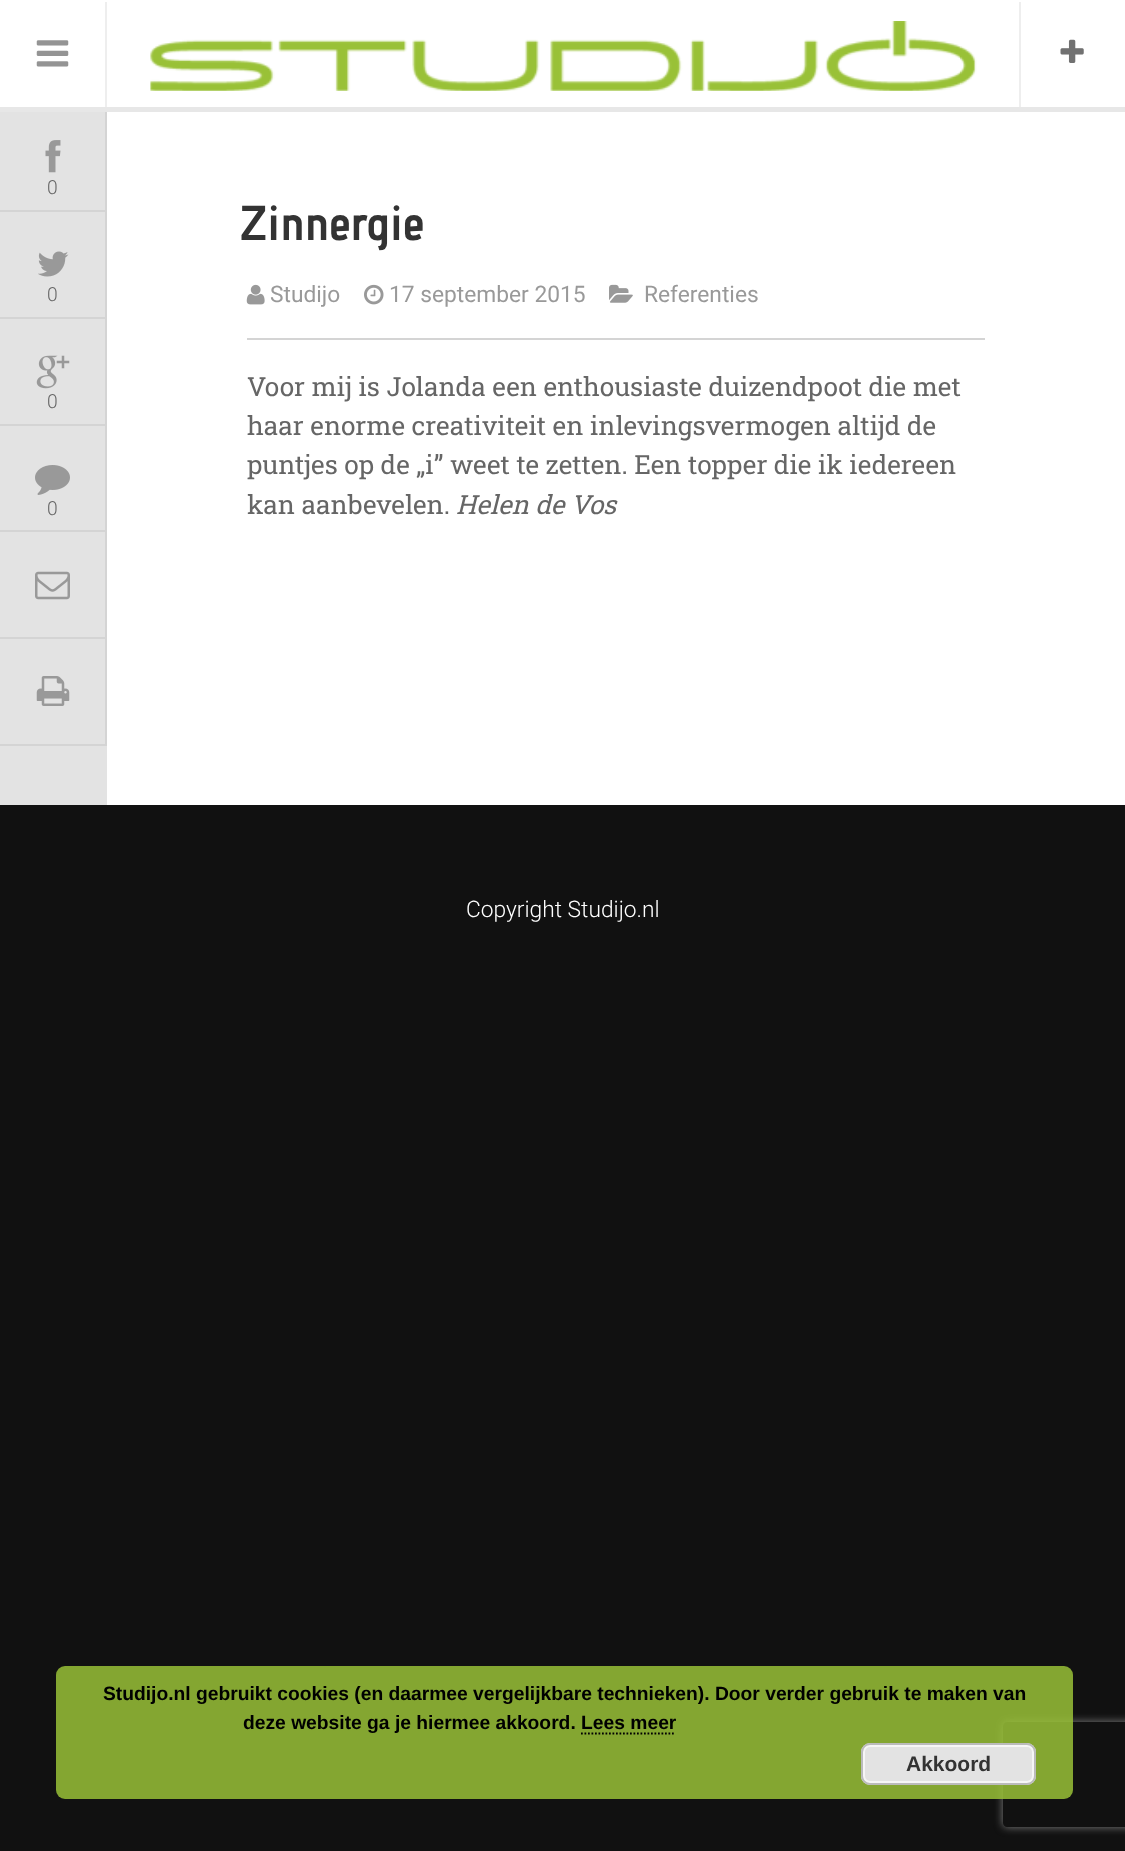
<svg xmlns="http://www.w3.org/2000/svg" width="1125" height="1851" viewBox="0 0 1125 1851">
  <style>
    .t1 { font: 300 19.25px Roboto; fill: #666; }
    .t2 { font: bold 49px Advent Pro; fill: #333; }
    .t3 { font: 22.75px Roboto; fill: #999; }
    .t4 { font: 26.25px Roboto Slab; fill: #666; }
    .t5 { font: italic 26.25px Roboto Slab; fill: #666; }
    .t6 { font: 300 22.75px Roboto; fill: #fff; }
    .t7 { font: bold 19.25px Liberation Sans; fill: #000; }
    .t8 { font: bold 21px Liberation Sans; fill: #333; }
  </style>
  <defs>
    <clipPath id="clip1"><path d="M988 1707H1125V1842H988ZM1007 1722H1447C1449 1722 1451 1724 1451 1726V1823C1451 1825 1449 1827 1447 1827H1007C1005 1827 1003 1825 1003 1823V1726C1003 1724 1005 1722 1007 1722Z" clip-rule="evenodd"/></clipPath>
  </defs>
  <rect width="100%" height="100%" fill="#111"/>
  <rect x="0" y="112" width="107" height="693" fill="#e3e3e3"/>
  <rect x="105" y="105" width="2" height="641" fill="#d4d4d4"/>
  <rect x="0" y="0" width="1125" height="107" fill="#fff"/>
  <rect x="0" y="107" width="1125" height="5" fill="#e7e7e7"/>
  <rect x="105" y="2" width="2" height="105" fill="#eee"/>
  <image x="36" y="40" width="33" height="27" href="images/1.png"/>
  <image x="150" y="21" width="827" height="70" href="images/2.png"/>
  <rect x="1019" y="2" width="2" height="105" fill="#eee"/>
  <image x="1060" y="39" width="24" height="24" href="images/3.png"/>
  <rect x="0" y="210" width="105" height="2" fill="#d4d4d4"/>
  <image x="45" y="140" width="16" height="33" href="images/4.png"/>
  <text x="47" y="194" class="t1">0</text>
  <rect x="0" y="317" width="105" height="2" fill="#d4d4d4"/>
  <image x="38" y="251" width="31" height="26" href="images/5.png"/>
  <text x="47" y="301" class="t1">0</text>
  <rect x="0" y="424" width="105" height="2" fill="#d4d4d4"/>
  <image x="36" y="355" width="34" height="34" href="images/6.png"/>
  <text x="47" y="408" class="t1">0</text>
  <rect x="0" y="530" width="105" height="2" fill="#d4d4d4"/>
  <image x="35" y="465" width="35" height="30" href="images/7.png"/>
  <text x="47" y="515" class="t1">0</text>
  <rect x="0" y="637" width="105" height="2" fill="#d4d4d4"/>
  <image x="35" y="571" width="35" height="29" href="images/8.png"/>
  <rect x="0" y="744" width="105" height="2" fill="#d4d4d4"/>
  <image x="36" y="676" width="34" height="30" href="images/9.png"/>
  <rect x="107" y="112" width="1018" height="693" fill="#fff"/>
  <text x="240" y="240" class="t2">Zinnergie</text>
  <rect x="247" y="338" width="738" height="2" fill="#d4d4d4"/>
  <image x="246" y="284" width="19" height="21" href="images/10.png"/>
  <text x="270" y="302" class="t3">Studijo</text>
  <image x="364" y="284" width="20" height="21" href="images/11.png"/>
  <text x="389" y="302" class="t3">17 september 2015</text>
  <image x="609" y="284" width="24" height="19" href="images/12.png"/>
  <text x="644" y="302" class="t3">Referenties</text>
  <text x="247" y="396" class="t4">Voor mij is Jolanda een enthousiaste duizendpoot die met</text>
  <text x="247" y="435" class="t4">haar enorme creativiteit en inlevingsvermogen altijd de</text>
  <text x="247" y="474" class="t4">puntjes op de „i” weet te zetten. Een topper die ik iedereen</text>
  <text x="247" y="514" class="t4">kan aanbevelen.</text>
  <text x="456" y="514" class="t5">Helen de Vos</text>
  <text x="466" y="917" class="t6">Copyright Studijo.nl</text>
  <g clip-path="url(#clip1)">
    <rect x="1003" y="1722" width="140" height="105" rx="4" fill="#808080" filter="blur(4.5px)"/>
  </g>
  <rect x="56" y="1666" width="1017" height="133" rx="9" fill="#99c137d9"/>
  <text x="103" y="1700" class="t7">Studijo.nl gebruikt cookies (en daarmee vergelijkbare technieken). Door verder gebruik te maken van</text>
  <text x="243" y="1729" class="t7">deze website ga je hiermee akkoord. Lees meer</text>
  <path d="M581 1733.5H675.5" fill="none" stroke="#000" stroke-width="1.8" stroke-dasharray="1.75 1.75"/>
  <rect x="861" y="1743" width="175" height="42" rx="9" fill="#e3e3e3"/>
  <rect x="864" y="1746" width="169" height="36" rx="6" fill="none" stroke="#f6f6f6" stroke-width="2"/>
  <rect x="862" y="1744" width="173" height="40" rx="8" fill="none" stroke="#bbb" stroke-width="2"/>
  <text x="906" y="1771" class="t8">Akkoord</text>
</svg>
